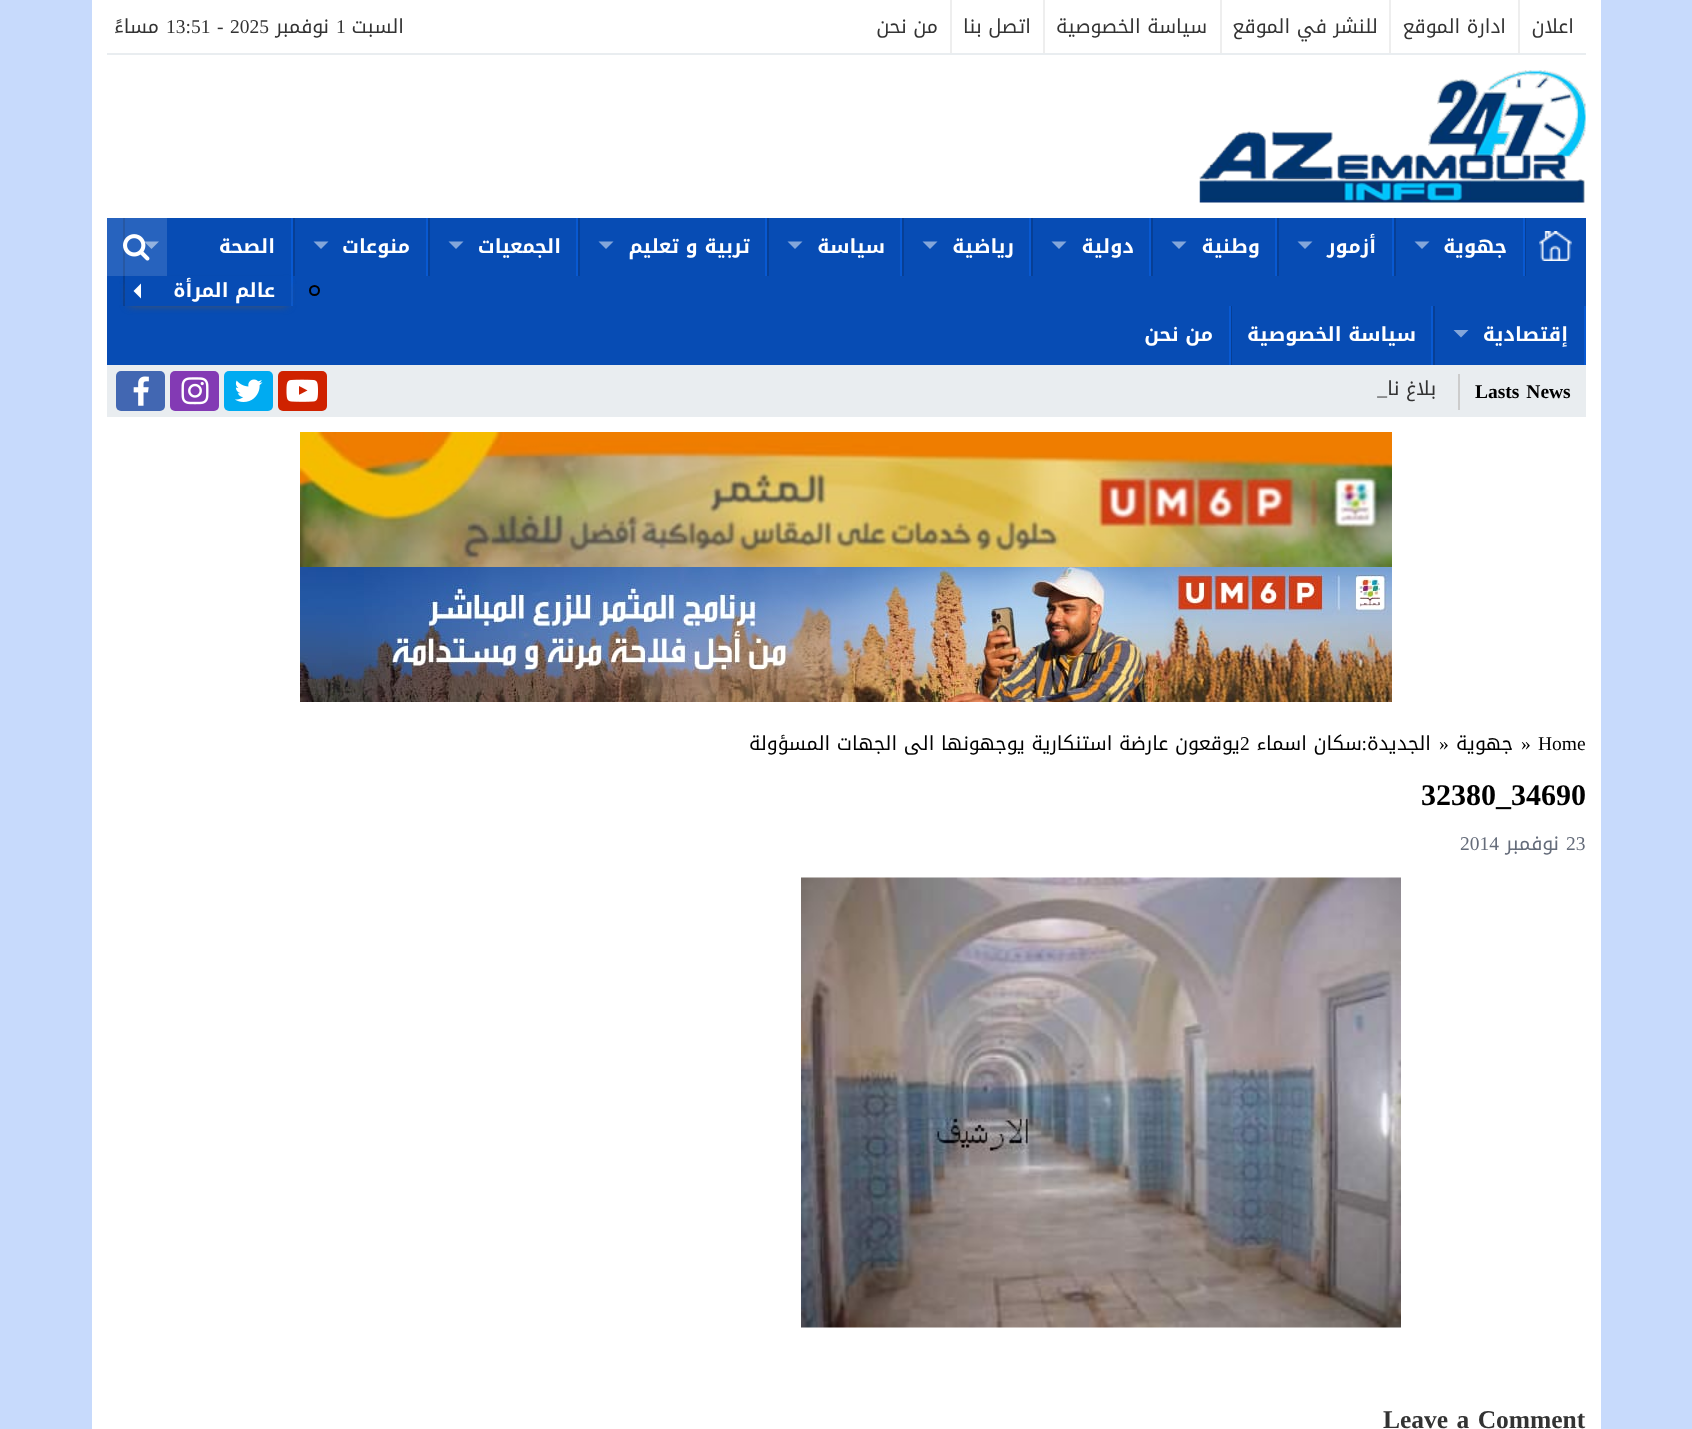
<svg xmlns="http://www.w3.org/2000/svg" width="1692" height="1429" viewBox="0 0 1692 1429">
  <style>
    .t1 { font: 19.5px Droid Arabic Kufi; direction: rtl; fill: #333; }
    .t2 { font: 19.5px Liberation Serif; fill: #333; }
    .t3 { font: bold 19.5px Droid Arabic Kufi; direction: rtl; fill: #fff; }
    .t4 { font: bold 19.5px Liberation Serif; fill: #000; }
    .t5 { font: 19.5px Liberation Serif; direction: rtl; fill: #333; }
    .t6 { font: 19.5px Liberation Serif; fill: #000; }
    .t7 { font: 19.5px Droid Arabic Kufi; direction: rtl; fill: #000; }
    .t8 { font: 19.5px Liberation Serif; direction: rtl; fill: #000; }
    .t9 { font: bold 30px Liberation Serif; fill: #000; }
    .t10 { font: 19.5px Liberation Serif; fill: #656c7a; }
    .t11 { font: 19.5px Droid Arabic Kufi; direction: rtl; fill: #656c7a; }
    .t12 { font: bold 25.5px Liberation Serif; fill: #333; }
  </style>
  <defs>
    <clipPath id="clip1"><path d="M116 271H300V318H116ZM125 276H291V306H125Z" clip-rule="evenodd"/></clipPath>
  </defs>
  <rect width="100%" height="100%" fill="#c7dafc"/>
  <rect x="92" y="0" width="1509" height="1429" fill="#fff"/>
  <rect x="107" y="53" width="1479" height="2" fill="#e9edf0"/>
  <rect x="1518" y="0" width="2" height="53" fill="#eee"/>
  <text x="1574" y="33" class="t1">اعلان</text>
  <rect x="1389" y="0" width="2" height="53" fill="#eee"/>
  <text x="1506" y="33" class="t1">ادارة الموقع</text>
  <rect x="1220" y="0" width="2" height="53" fill="#eee"/>
  <text x="1378" y="33" class="t1">للنشر في الموقع</text>
  <rect x="1043" y="0" width="2" height="53" fill="#eee"/>
  <text x="1207" y="33" class="t1">سياسة الخصوصية</text>
  <rect x="950" y="0" width="2" height="53" fill="#eee"/>
  <text x="1031" y="33" class="t1">اتصل بنا</text>
  <text x="938" y="33" class="t1">من نحن</text>
  <text x="404" y="33" class="t1">السبت</text>
  <text x="336" y="33" class="t2">1</text>
  <text x="329" y="33" class="t1">نوفمبر</text>
  <text x="230" y="33" class="t2">2025</text>
  <text x="217" y="33" class="t2">-</text>
  <text x="166" y="33" class="t2">13:51</text>
  <text x="159" y="33" class="t1">مساءً</text>
  <image x="1199" y="70" width="387" height="133" href="images/1.png"/>
  <rect x="107" y="218" width="1479" height="147" fill="#074cb4"/>
  <rect x="107" y="218" width="60" height="58" fill="#2763be"/>
  <rect x="1525" y="218" width="1" height="58" fill="#073f95"/>
  <image x="1539" y="231" width="33" height="30" href="images/2.png"/>
  <rect x="1523" y="218" width="2" height="58" fill="#0859d2"/>
  <rect x="1394" y="218" width="2" height="58" fill="#073f95"/>
  <text x="1507" y="253" class="t3">جهوية</text>
  <path d="M1414.5 241.5H1429.5L1422 249Z" fill="#83a6da"/>
  <rect x="1392" y="218" width="2" height="58" fill="#0859d2"/>
  <rect x="1277" y="218" width="2" height="58" fill="#073f95"/>
  <text x="1376" y="253" class="t3">أزمور</text>
  <path d="M1297.5 241.5H1312.5L1305 249Z" fill="#83a6da"/>
  <rect x="1275" y="218" width="2" height="58" fill="#0859d2"/>
  <rect x="1151" y="218" width="2" height="58" fill="#073f95"/>
  <text x="1260" y="253" class="t3">وطنية</text>
  <path d="M1171.5 241.5H1186.5L1179 249Z" fill="#83a6da"/>
  <rect x="1149" y="218" width="2" height="58" fill="#0859d2"/>
  <rect x="1031" y="218" width="2" height="58" fill="#073f95"/>
  <text x="1134" y="253" class="t3">دولية</text>
  <path d="M1051.5 241.5H1066.5L1059 249Z" fill="#83a6da"/>
  <rect x="1029" y="218" width="2" height="58" fill="#0859d2"/>
  <rect x="902" y="218" width="2" height="58" fill="#073f95"/>
  <text x="1014" y="253" class="t3">رياضية</text>
  <path d="M922.5 241.5H937.5L930 249Z" fill="#83a6da"/>
  <rect x="900" y="218" width="2" height="58" fill="#0859d2"/>
  <rect x="767" y="218" width="2" height="58" fill="#073f95"/>
  <text x="885" y="253" class="t3">سياسة</text>
  <path d="M787.5 241.5H802.5L795 249Z" fill="#83a6da"/>
  <rect x="765" y="218" width="2" height="58" fill="#0859d2"/>
  <rect x="578" y="218" width="2" height="58" fill="#073f95"/>
  <text x="750" y="253" class="t3">تربية و تعليم</text>
  <path d="M598.5 241.5H613.5L606 249Z" fill="#83a6da"/>
  <rect x="576" y="218" width="2" height="58" fill="#0859d2"/>
  <rect x="428" y="218" width="2" height="58" fill="#073f95"/>
  <text x="561" y="253" class="t3">الجمعيات</text>
  <path d="M448.5 241.5H463.5L456 249Z" fill="#83a6da"/>
  <rect x="426" y="218" width="2" height="58" fill="#0859d2"/>
  <rect x="293" y="218" width="2" height="58" fill="#073f95"/>
  <text x="410" y="253" class="t3">منوعات</text>
  <path d="M313.5 241.5H328.5L321 249Z" fill="#83a6da"/>
  <rect x="291" y="218" width="2" height="88" fill="#0859d2"/>
  <rect x="123" y="276" width="2" height="30" fill="#073f95"/>
  <rect x="123" y="218" width="2" height="58" fill="#2758a3"/>
  <text x="275" y="253" class="t3">الصحة</text>
  <path d="M144 241.5H159L151.5 249Z" fill="#93b2df"/>
  <g clip-path="url(#clip1)">
    <rect x="129" y="284" width="158" height="21" fill="#555" filter="blur(4px)"/>
  </g>
  <circle cx="314.5" cy="290.5" r="4.5" fill="none" stroke="#000" stroke-width="2"/>
  <text x="275" y="297" class="t3">عالم المرأة</text>
  <path d="M141 283.5V298.5L133.5 291Z" fill="#fff"/>
  <rect x="1584" y="306" width="2" height="59" fill="#0859d2"/>
  <rect x="1433" y="306" width="2" height="59" fill="#073f95"/>
  <text x="1568" y="341" class="t3">إقتصادية</text>
  <path d="M1453.5 330H1468.5L1461 337.5Z" fill="#83a6da"/>
  <rect x="1431" y="306" width="2" height="59" fill="#0859d2"/>
  <rect x="1231" y="306" width="1" height="59" fill="#073f95"/>
  <text x="1416" y="341" class="t3">سياسة الخصوصية</text>
  <rect x="1229" y="306" width="2" height="59" fill="#0859d2"/>
  <text x="1213" y="341" class="t3">من نحن</text>
  <image x="123" y="234" width="27" height="27" href="images/3.png"/>
  <rect x="107" y="365" width="1479" height="52" fill="#e9edf0"/>
  <text x="1475" y="398" word-spacing="2" class="t4">Lasts News</text>
  <rect x="1458" y="374" width="2" height="36" fill="#ccc"/>
  <text x="1436" y="395" class="t1">بلاغ نا</text>
  <text x="1387" y="395" class="t5">_</text>
  <rect x="278" y="371" width="49" height="40" rx="5" fill="#cf2200"/>
  <image x="286" y="379" width="32" height="23" href="images/4.png"/>
  <rect x="224" y="371" width="49" height="40" rx="5" fill="#00abf1"/>
  <image x="235" y="379" width="28" height="23" href="images/5.png"/>
  <rect x="170" y="371" width="49" height="40" rx="5" fill="#833ab4"/>
  <image x="181" y="377" width="28" height="28" href="images/6.png"/>
  <rect x="116" y="371" width="49" height="40" rx="5" fill="#4267b2"/>
  <image x="133" y="376" width="16" height="30" href="images/7.png"/>
  <image x="300" y="432" width="1092" height="135" href="images/8.png"/>
  <image x="300" y="567" width="1092" height="135" href="images/9.png"/>
  <text x="1538" y="750" class="t6">Home</text>
  <text x="1521" y="750" class="t6">»</text>
  <text x="1513" y="750" class="t7">جهوية</text>
  <text x="1439" y="750" class="t6">»</text>
  <text x="1431" y="750" class="t7">الجديدة</text>
  <text x="1367" y="750" class="t8">:</text>
  <text x="1362" y="750" class="t7">سكان اسماء</text>
  <text x="1240" y="750" class="t6">2</text>
  <text x="1240" y="750" class="t7">يوقعون عارضة استنكارية يوجهونها الى الجهات المسؤولة</text>
  <text x="1421" y="805" class="t9">32380_34690</text>
  <text x="1566" y="850" class="t10">23</text>
  <text x="1559" y="850" class="t11">نوفمبر</text>
  <text x="1460" y="850" class="t10">2014</text>
  <image x="801" y="877" width="600" height="451" href="images/10.png"/>
  <text x="1383" y="1428" word-spacing="2" class="t12">Leave a Comment</text>
</svg>
